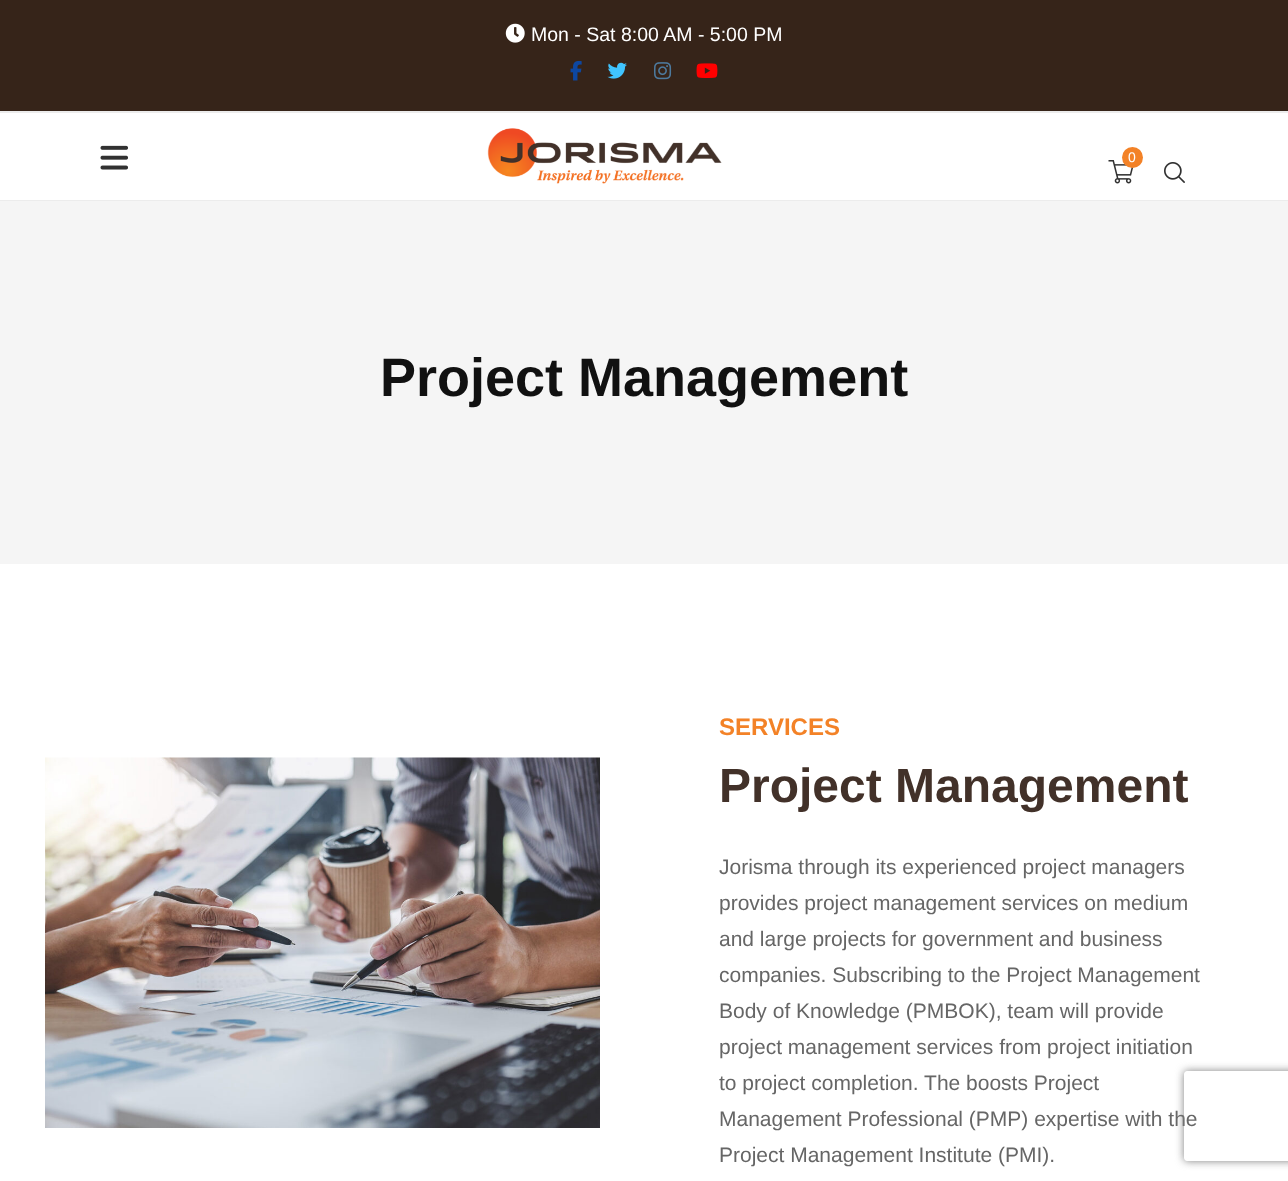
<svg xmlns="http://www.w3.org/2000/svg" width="1288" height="1181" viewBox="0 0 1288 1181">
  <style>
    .t1 { font: 19.5px Liberation Sans; fill: #fff; }
    .t2 { font: 14px Liberation Sans; fill: #fff; }
    .t3 { font: bold 54px Liberation Sans; fill: #111; }
    .t4 { font: bold 24px Liberation Sans; fill: #f38227; }
    .t5 { font: bold 48px Liberation Sans; fill: #423129; }
    .t6 { font: 21px Liberation Sans; fill: #666; }
  </style>
  <defs>
    <clipPath id="clip1"><path d="M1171 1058H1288V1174H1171ZM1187 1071H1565C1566.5 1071 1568 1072.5 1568 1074V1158C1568 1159.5 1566.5 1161 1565 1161H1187C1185.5 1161 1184 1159.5 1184 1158V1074C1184 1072.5 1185.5 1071 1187 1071Z" clip-rule="evenodd"/></clipPath>
  </defs>
  <rect width="100%" height="100%" fill="#fff"/>
  <rect x="0" y="0" width="1288" height="111" fill="#362419"/>
  <image x="505" y="23" width="20" height="20" href="images/1.png"/>
  <text x="531" y="41" class="t1">Mon - Sat 8:00 AM - 5:00 PM</text>
  <image x="570" y="60" width="12" height="21" href="images/2.png"/>
  <image x="607" y="62" width="20" height="17" href="images/3.png"/>
  <image x="654" y="62" width="18" height="18" href="images/4.png"/>
  <image x="696" y="63" width="22" height="15" href="images/5.png"/>
  <rect x="0" y="111" width="1288" height="2" fill="#ececec"/>
  <rect x="0" y="200" width="1288" height="1" fill="#ececec"/>
  <image x="100" y="145" width="28" height="25" href="images/6.png"/>
  <image x="487" y="128" width="235" height="56" href="images/7.png"/>
  <image x="1108" y="160" width="26" height="24" href="images/8.png"/>
  <circle cx="1132.5" cy="157.5" r="10.5" fill="#f38227"/>
  <text x="1128" y="162" class="t2">0</text>
  <image x="1164" y="162" width="21" height="21" href="images/9.png"/>
  <rect x="0" y="201" width="1288" height="363" fill="#f5f5f5"/>
  <text x="380" y="396" class="t3">Project Management</text>
  <image x="45" y="757" width="555" height="371" href="images/10.png"/>
  <text x="719" y="735" class="t4">SERVICES</text>
  <text x="719" y="802" class="t5">Project Management</text>
  <text x="719" y="874" class="t6">Jorisma through its experienced project managers</text>
  <text x="719" y="910" class="t6">provides project management services on medium</text>
  <text x="719" y="946" class="t6">and large projects for government and business</text>
  <text x="719" y="982" class="t6">companies. Subscribing to the Project Management</text>
  <text x="719" y="1018" class="t6">Body of Knowledge (PMBOK), team will provide</text>
  <text x="719" y="1054" class="t6">project management services from project initiation</text>
  <text x="719" y="1090" class="t6">to project completion. The boosts Project</text>
  <text x="719" y="1126" class="t6">Management Professional (PMP) expertise with the</text>
  <text x="719" y="1162" class="t6">Project Management Institute (PMI).</text>
  <g clip-path="url(#clip1)">
    <rect x="1184" y="1071" width="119" height="90" rx="3" fill="#808080" filter="blur(4px)"/>
  </g>
</svg>
